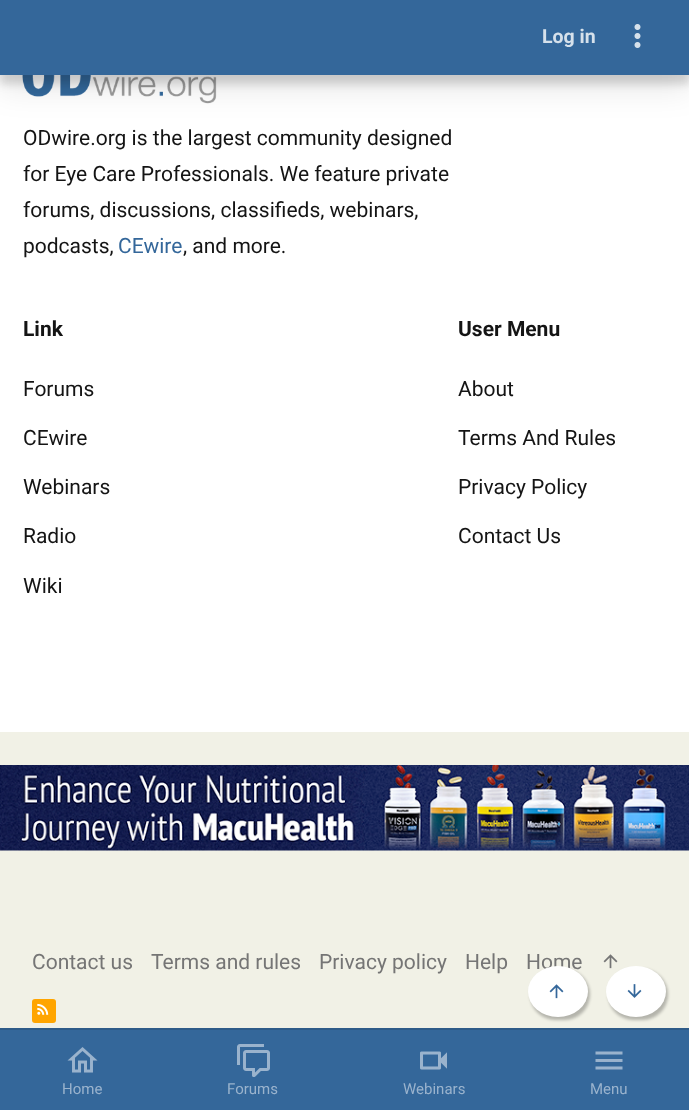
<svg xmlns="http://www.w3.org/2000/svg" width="689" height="1110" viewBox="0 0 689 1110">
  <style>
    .t1 { font: bold 19.5px Roboto; fill: #d6e1eb; }
    .t2 { font: 21px Roboto; fill: #141414; }
    .t3 { font: 21px Roboto; fill: #34679a; }
    .t4 { font: bold 21px Roboto; fill: #141414; }
    .t5 { font: 21px Roboto; fill: #757575; }
    .t6 { font: 15px Roboto; fill: #9ab3cd; }
  </style>
  <rect width="100%" height="100%" fill="#f1f1e6"/>
  <rect x="0" y="75" width="689" height="657" fill="#fff"/>
  <image x="22" y="75" width="195" height="29" href="images/2.png"/>
  <rect x="0" y="9" width="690" height="75" fill="#00000026" filter="blur(4.5px)"/>
  <rect x="0" y="15" width="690" height="75" fill="#00000017" filter="blur(15px)"/>
  <rect x="0" y="0" width="689" height="75" fill="#34679a"/>
  <text x="542" y="43" class="t1">Log in</text>
  <image x="634" y="24" width="7" height="24" href="images/1.png"/>
  <text x="23" y="145" class="t2">ODwire.org is the largest community designed</text>
  <text x="23" y="181" class="t2">for Eye Care Professionals. We feature private</text>
  <text x="23" y="217" class="t2">forums, discussions, classifieds, webinars,</text>
  <text x="23" y="253" class="t2">podcasts,</text>
  <text x="118" y="253" class="t3">CEwire</text>
  <text x="183" y="253" class="t2">, and more.</text>
  <text x="23" y="336" class="t4">Link</text>
  <text x="23" y="396" class="t2">Forums</text>
  <text x="23" y="445" class="t2">CEwire</text>
  <text x="23" y="494" class="t2">Webinars</text>
  <text x="23" y="543" class="t2">Radio</text>
  <text x="23" y="593" class="t2">Wiki</text>
  <text x="458" y="336" class="t4">User Menu</text>
  <text x="458" y="396" class="t2">About</text>
  <text x="458" y="445" class="t2">Terms And Rules</text>
  <text x="458" y="494" class="t2">Privacy Policy</text>
  <text x="458" y="543" class="t2">Contact Us</text>
  <image x="0" y="765" width="689" height="86" href="images/3.png"/>
  <text x="32" y="969" class="t5">Contact us</text>
  <text x="151" y="969" class="t5">Terms and rules</text>
  <text x="319" y="969" class="t5">Privacy policy</text>
  <text x="465" y="969" class="t5">Help</text>
  <text x="526" y="969" class="t5">Home</text>
  <image x="603" y="954" width="15" height="15" href="images/4.png"/>
  <rect x="32" y="999" width="24" height="24" rx="3" fill="#ffa500"/>
  <image x="37" y="1003" width="12" height="12" href="images/5.png"/>
  <rect x="530" y="969" width="60" height="51" rx="25.5" fill="#00000040" filter="blur(1.5px)"/>
  <ellipse cx="558" cy="991.5" rx="30" ry="25.5" fill="#fff"/>
  <image x="549" y="984" width="15" height="15" href="images/6.png"/>
  <rect x="608" y="969" width="60" height="51" rx="25.5" fill="#00000040" filter="blur(1.5px)"/>
  <ellipse cx="636" cy="991.5" rx="30" ry="25.5" fill="#fff"/>
  <image x="627" y="984" width="15" height="14" href="images/7.png"/>
  <rect x="0" y="1030" width="689" height="80" fill="#34679a"/>
  <rect x="0" y="1028" width="689" height="2" fill="#2e5b88"/>
  <image x="67" y="1047" width="31" height="26" href="images/8.png"/>
  <text x="62" y="1094" class="t6">Home</text>
  <image x="237" y="1044" width="33" height="33" href="images/9.png"/>
  <text x="227" y="1094" class="t6">Forums</text>
  <image x="420" y="1051" width="27" height="19" href="images/10.png"/>
  <text x="403" y="1094" class="t6">Webinars</text>
  <image x="595" y="1051" width="28" height="19" href="images/11.png"/>
  <text x="590" y="1094" class="t6">Menu</text>
</svg>
